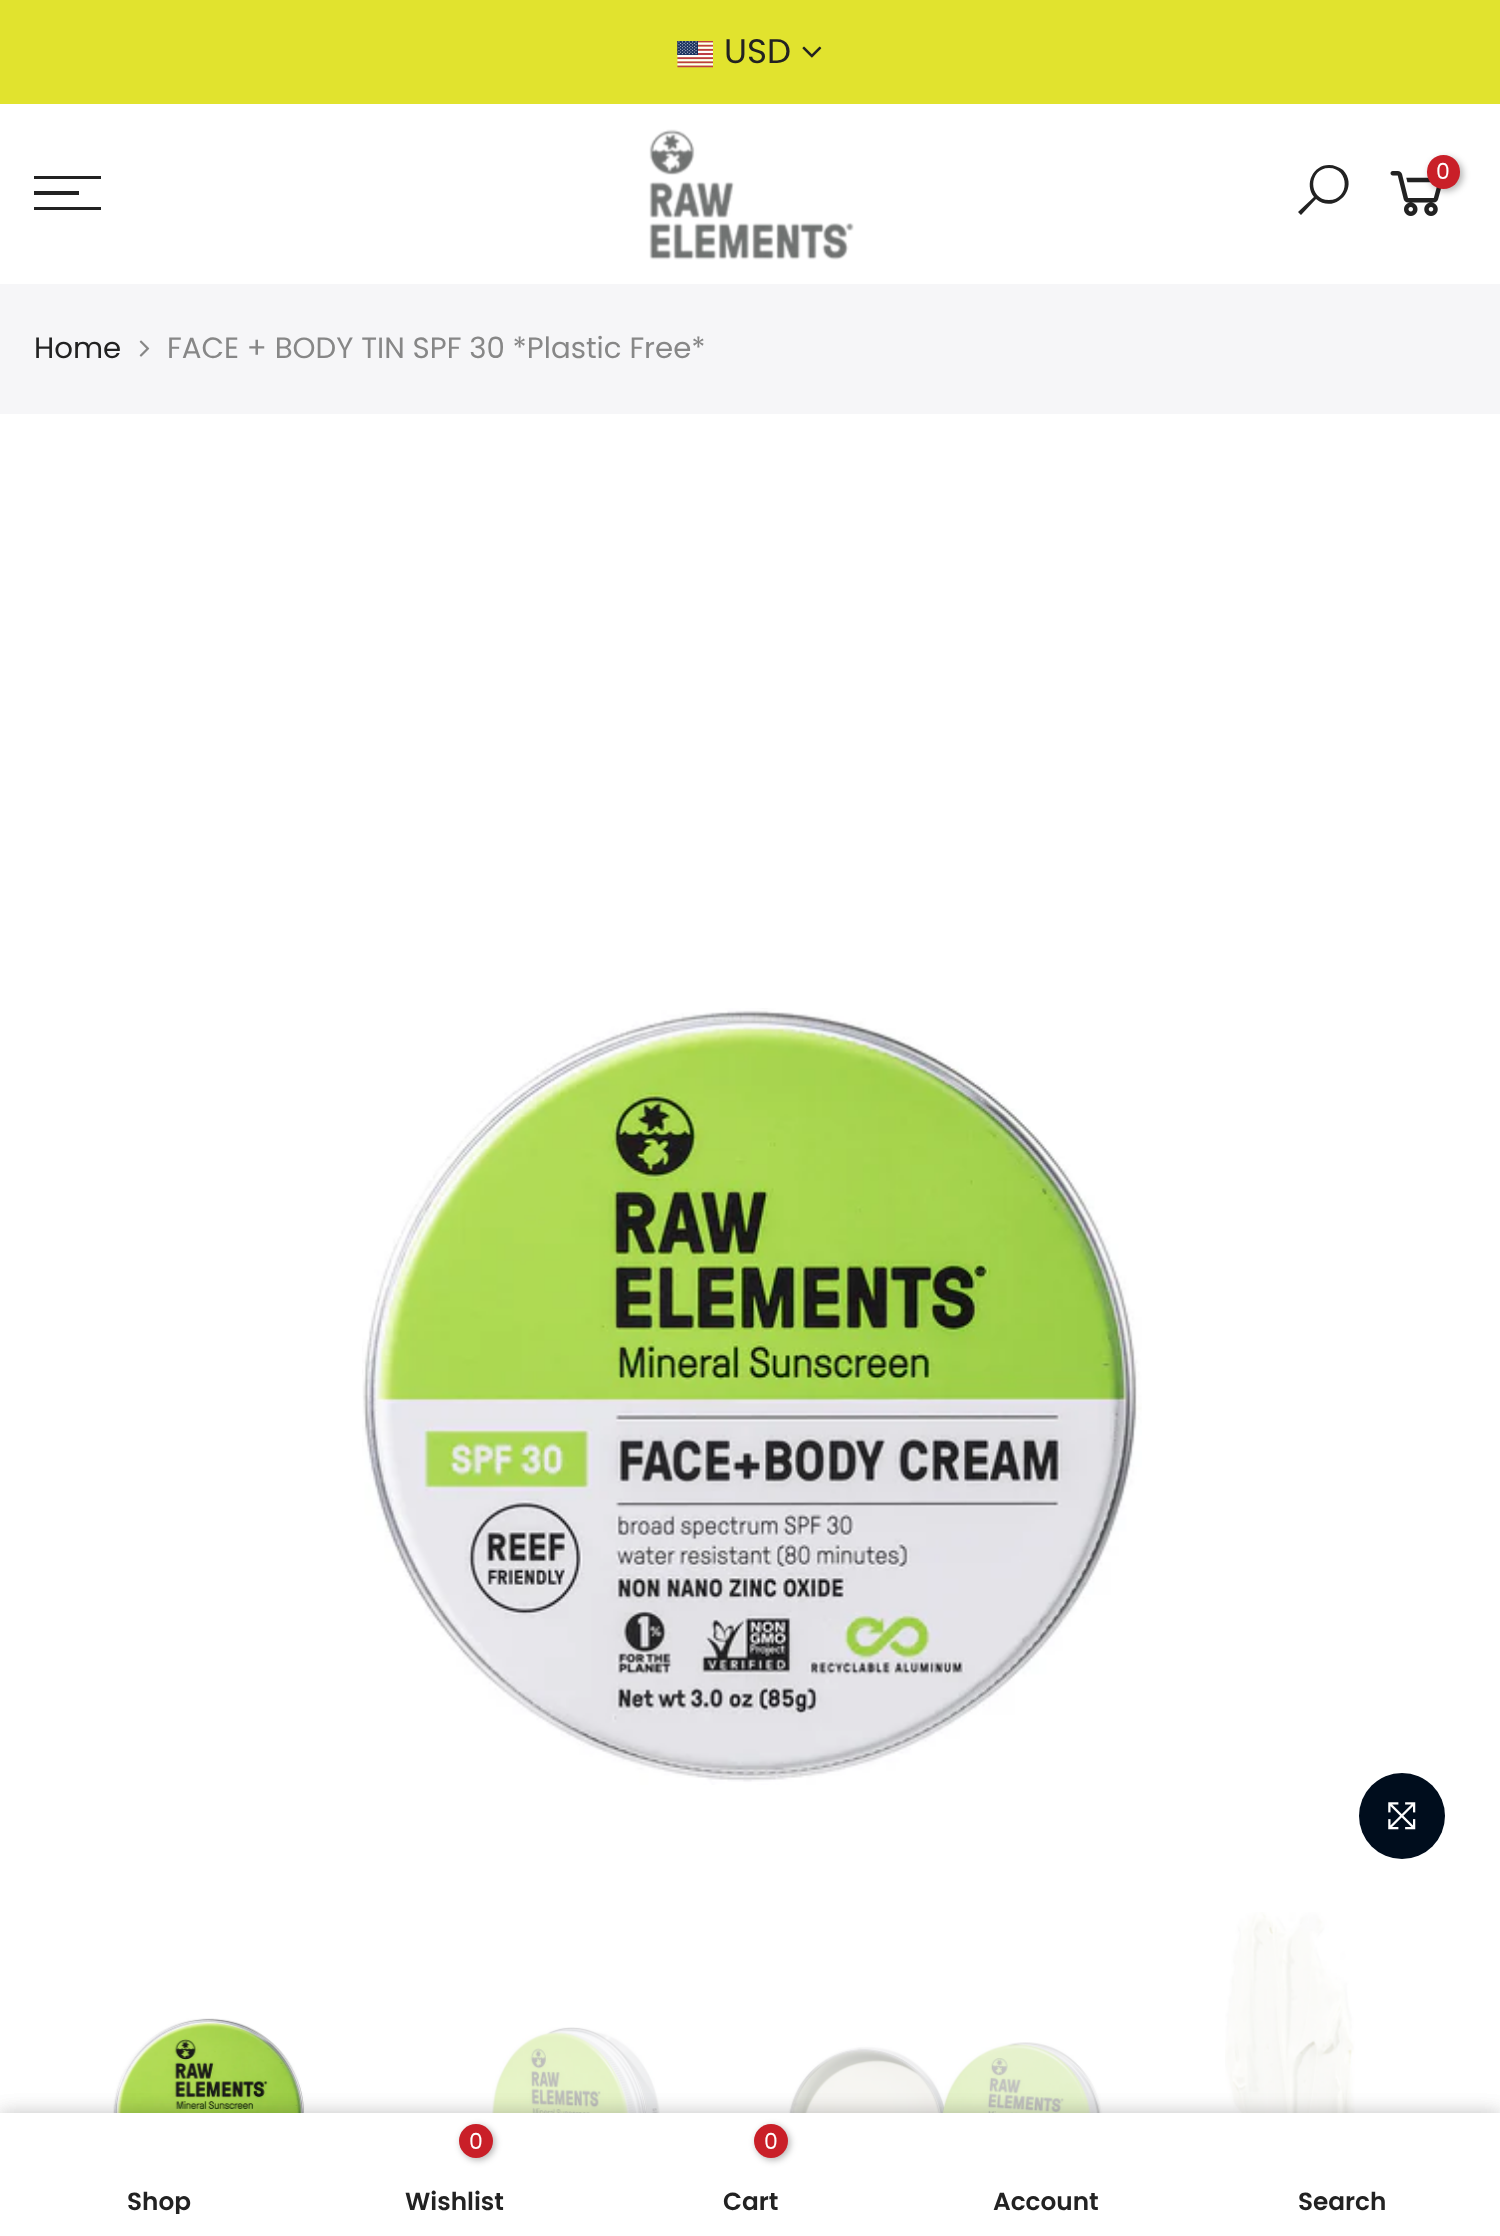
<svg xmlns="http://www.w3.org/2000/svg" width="1500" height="2236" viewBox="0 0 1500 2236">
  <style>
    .t1 { font: 34px Poppins; fill: #222; }
    .t2 { font: 22px Poppins; fill: #fff; }
    .t3 { font: 29.25px Poppins; fill: #222; }
    .t4 { font: 29.25px Poppins; fill: #878787; }
    .t5 { font: 600 24.75px Poppins; fill: #222; }
  </style>
  <defs>
    <clipPath id="clip1"><rect x="34" y="2189" width="250" height="25"/></clipPath>
  </defs>
  <rect width="100%" height="100%" fill="#fff"/>
  <rect x="0" y="0" width="1500" height="104" fill="#e1e32e"/>
  <image x="677" y="41" width="36" height="27" href="images/1.png"/>
  <text x="724" y="63" class="t1">USD</text>
  <image x="802" y="46" width="20" height="12" href="images/2.png"/>
  <image x="649" y="129" width="205" height="131" href="images/3.png"/>
  <path d="M1329 165C1313 165 1304 184 1314 197L1298 212L1301 215L1316 199C1335 215 1360 188 1343 170C1339 167 1334 165 1329 165ZM1329 168C1350 168 1350 200 1329 200C1308 200 1308 168 1329 168Z" fill="#222"/>
  <image x="1390" y="171" width="52" height="45" href="images/4.png"/>
  <rect x="1429" y="158" width="34" height="33" rx="16.5" fill="#0000004d" filter="blur(3.5px)"/>
  <rect x="1427" y="155" width="33" height="34" rx="16.5" fill="#c91f28"/>
  <text x="1436" y="179" class="t2">0</text>
  <rect x="34" y="176" width="67" height="3" fill="#222"/>
  <rect x="34" y="191" width="45" height="4" fill="#222"/>
  <rect x="34" y="207" width="67" height="3" fill="#222"/>
  <rect x="0" y="284" width="1500" height="130" fill="#f6f6f8"/>
  <text x="34" y="358" class="t3">Home</text>
  <image x="139" y="340" width="11" height="17" href="images/5.png"/>
  <text x="167" y="358" class="t4">FACE + BODY TIN SPF 30 *Plastic Free*</text>
  <image x="362" y="1008" width="780" height="777" href="images/6.png"/>
  <circle cx="1402" cy="1816" r="43" fill="#000d1d"/>
  <image x="1388" y="1802" width="28" height="28" href="images/7.png"/>
  <image x="113" y="2018" width="192" height="95" href="images/8.png"/>
  <image x="492" y="2027" width="168" height="86" href="images/9.png"/>
  <image x="788" y="2042" width="315" height="71" href="images/10.png"/>
  <image x="1225" y="1912" width="130" height="201" href="images/11.png"/>
  <rect x="0" y="2113" width="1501" height="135" fill="#0000001f" filter="blur(10px)"/>
  <rect x="0" y="2113" width="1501" height="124" fill="#0000001f" filter="blur(10px)"/>
  <rect x="0" y="2113" width="1500" height="123" fill="#fff"/>
  <g clip-path="url(#clip1)">
    <text x="127" y="2210" class="t5">Shop</text>
  </g>
  <rect x="461" y="2126" width="34" height="34" rx="17" fill="#0000004d" filter="blur(3.5px)"/>
  <circle cx="476" cy="2141" r="17" fill="#c91f28"/>
  <text x="469" y="2149" class="t2">0</text>
  <text x="405" y="2210" class="t5">Wishlist</text>
  <rect x="756" y="2126" width="34" height="34" rx="17" fill="#0000004d" filter="blur(3.5px)"/>
  <circle cx="771" cy="2141" r="17" fill="#c91f28"/>
  <text x="764" y="2149" class="t2">0</text>
  <text x="723" y="2210" class="t5">Cart</text>
  <text x="993" y="2210" class="t5">Account</text>
  <text x="1298" y="2210" class="t5">Search</text>
</svg>
